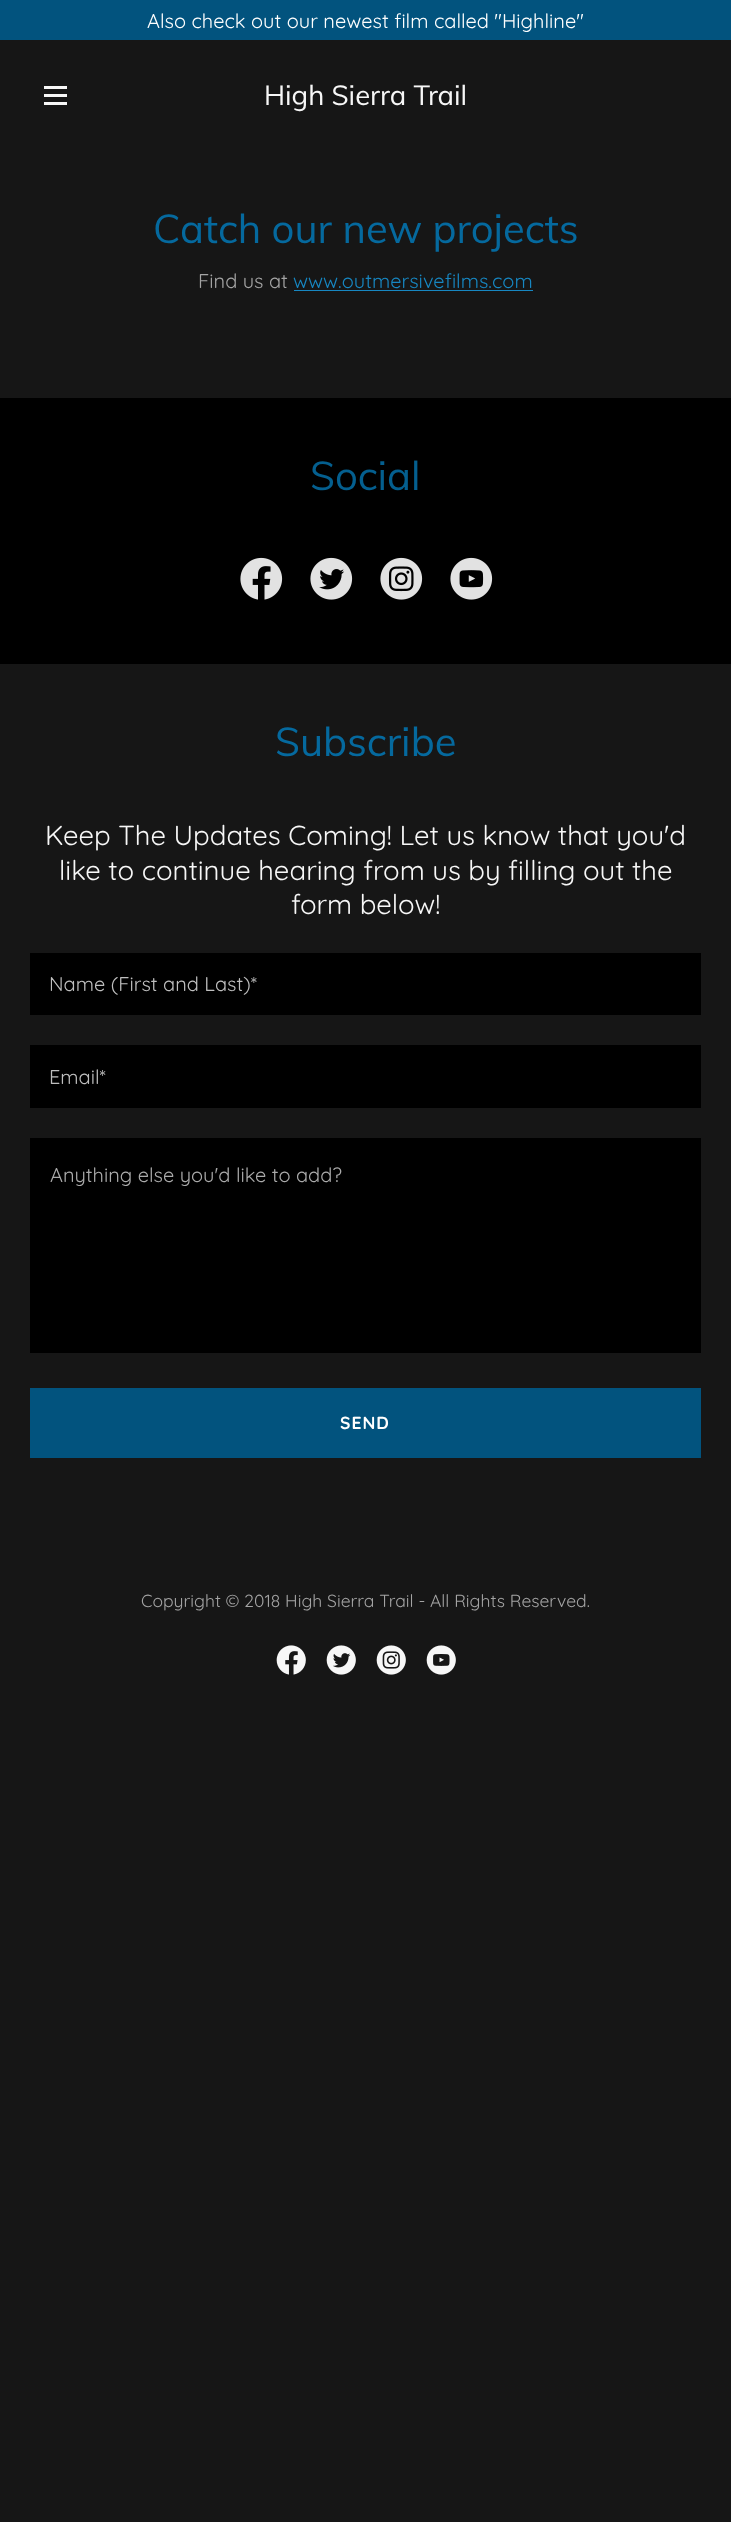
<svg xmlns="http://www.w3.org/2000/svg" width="731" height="2522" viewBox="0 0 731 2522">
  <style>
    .t1 { font: 20px Quicksand; fill: #fff; }
    .t2 { font: 27.5px Muli; fill: #f7f7f7; }
    .t3 { font: 40px Muli; fill: #05699e; }
    .t4 { font: 20px Quicksand; fill: #a4a4a4; }
    .t5 { font: 20px Quicksand; fill: #1787c2; }
    .t6 { font: 40px Muli; fill: #045f8f; }
    .t7 { font: 27.5px Quicksand; fill: #f7f7f7; }
    .t8 { font: 20px Quicksand; fill: #bfbfbf; }
    .t9 { font: 20px Quicksand; fill: #ababab; }
    .t10 { font: bold 17.5px Quicksand; letter-spacing: 1px; fill: #fff; }
    .t11 { font: 17.5px Quicksand; fill: #a4a4a4; }
  </style>
  <rect width="100%" height="100%" fill="#161616"/>
  <rect x="0" y="0" width="731" height="40" fill="#02537e"/>
  <text x="147" y="28" class="t1">Also check out our newest film called "Highline"</text>
  <rect x="44" y="86" width="23" height="3" fill="#f7f7f7"/>
  <rect x="44" y="94" width="23" height="3" fill="#f7f7f7"/>
  <rect x="44" y="102" width="23" height="3" fill="#f7f7f7"/>
  <text x="264" y="105" class="t2">High Sierra Trail</text>
  <text x="153" y="243" class="t3">Catch our new projects</text>
  <text x="198" y="288" class="t4">Find us at</text>
  <text x="293" y="288" class="t5">www.outmersivefilms.com</text>
  <rect x="294" y="290" width="239" height="1" fill="#1787c2"/>
  <rect x="0" y="398" width="731" height="266" fill="#000"/>
  <text x="310" y="490" class="t6">Social</text>
  <image x="240" y="557" width="43" height="43" href="images/1.png"/>
  <image x="310" y="557" width="43" height="43" href="images/2.png"/>
  <image x="380" y="557" width="43" height="43" href="images/3.png"/>
  <image x="450" y="557" width="43" height="43" href="images/4.png"/>
  <text x="275" y="756" class="t3">Subscribe</text>
  <text x="45" y="845" class="t7">Keep The Updates Coming! Let us know that you'd</text>
  <text x="59" y="880" class="t7">like to continue hearing from us by filling out the</text>
  <text x="291" y="914" class="t7">form below!</text>
  <rect x="30" y="953" width="671" height="62" fill="#000"/>
  <text x="49" y="991" class="t8">Name (First and Last)*</text>
  <rect x="30" y="1045" width="671" height="63" fill="#000"/>
  <text x="49" y="1084" class="t8">Email*</text>
  <rect x="30" y="1138" width="671" height="215" fill="#000"/>
  <text x="50" y="1182" class="t9">Anything else you'd like to add?</text>
  <rect x="30" y="1388" width="671" height="70" fill="#02537e"/>
  <text x="340" y="1429" class="t10">SEND</text>
  <text x="141" y="1607" class="t11">Copyright © 2018 High Sierra Trail - All Rights Reserved.</text>
  <image x="276" y="1645" width="30" height="30" href="images/5.png"/>
  <image x="326" y="1645" width="30" height="30" href="images/6.png"/>
  <image x="376" y="1645" width="30" height="30" href="images/7.png"/>
  <image x="426" y="1645" width="30" height="30" href="images/8.png"/>
</svg>
